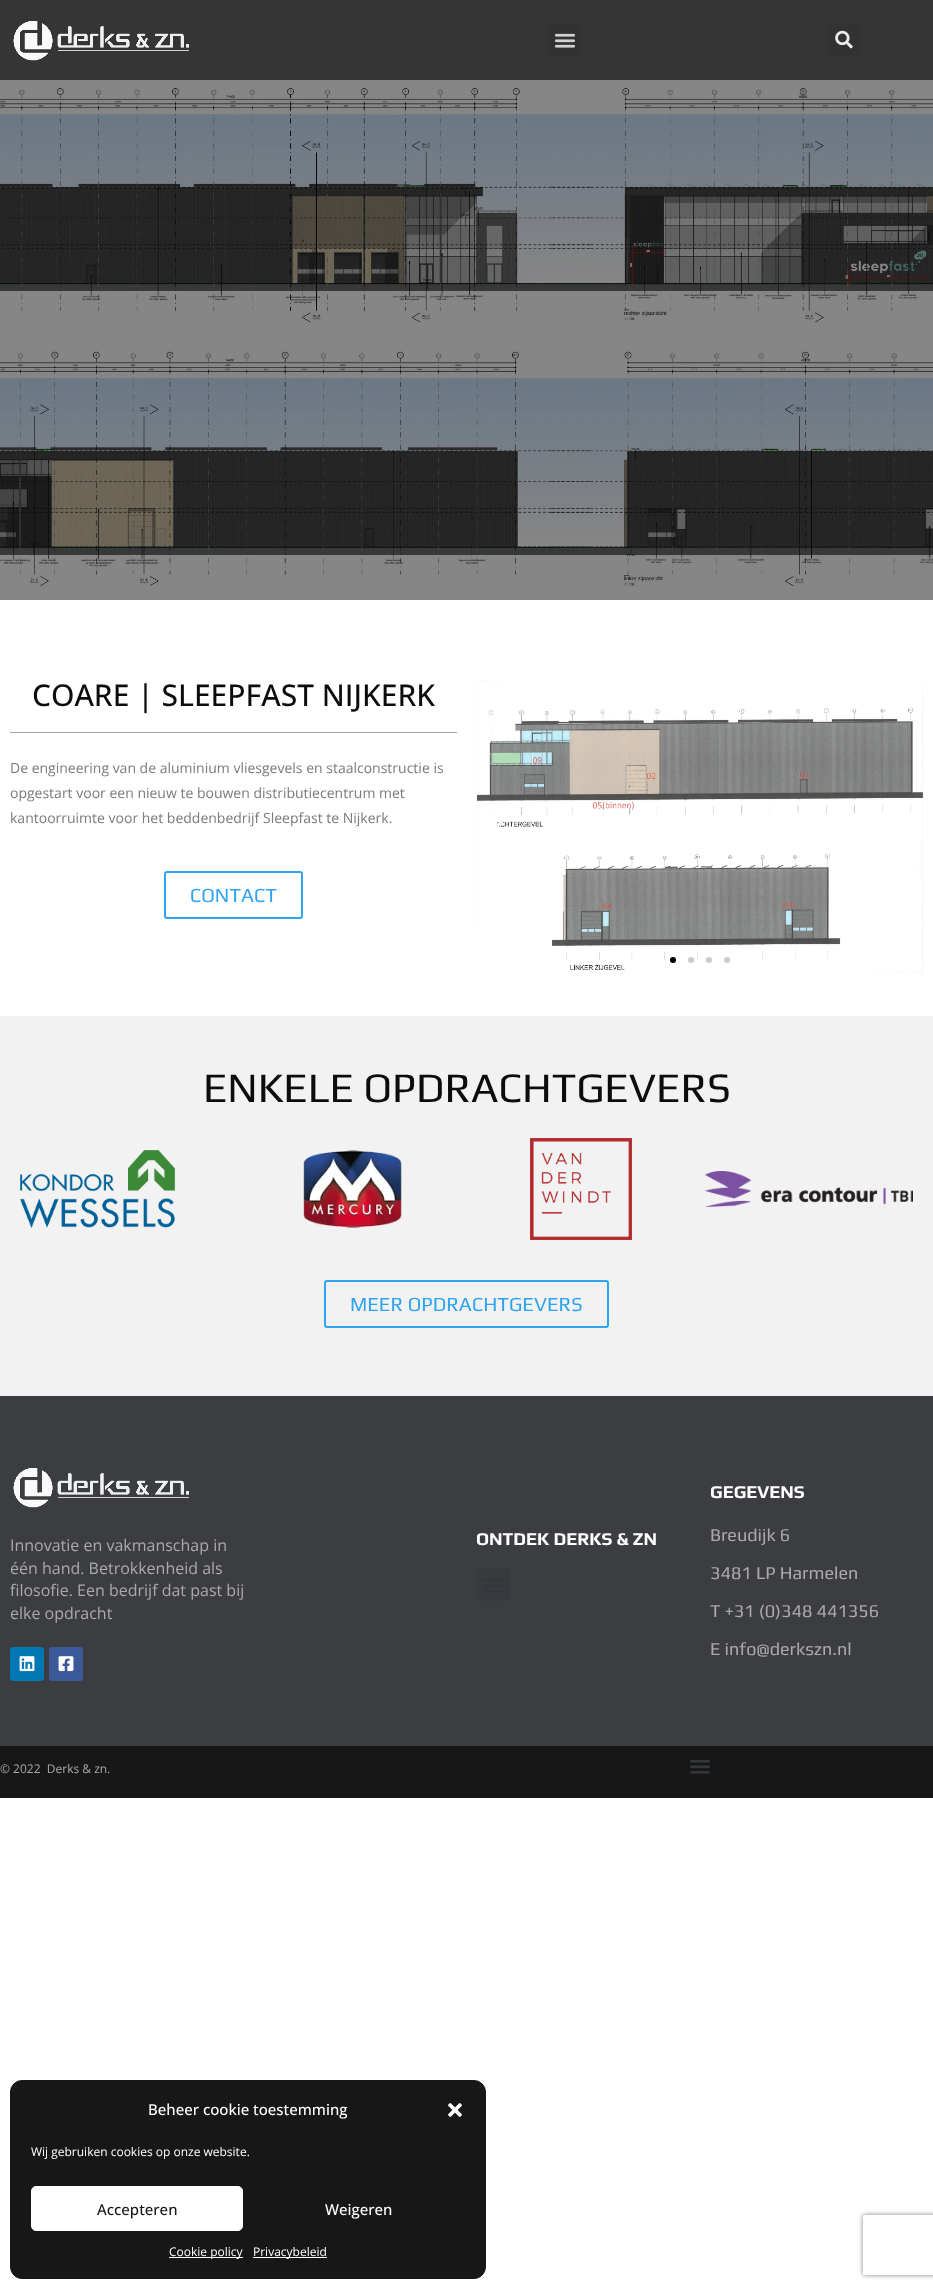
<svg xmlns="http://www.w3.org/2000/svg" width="933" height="2289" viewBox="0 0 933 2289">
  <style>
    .t1 { font: 500 30px Open Sans; fill: #0c0c0c; }
    .t2 { font: 14px Open Sans; fill: #7a7a7a; }
    .t3 { font: 20px Play; fill: #2ea3f2; }
    .t4 { font: 42px Play; fill: #0c0c0c; }
    .t5 { font: 16px Open Sans; fill: #aaa; }
    .t6 { font: bold 18px Play; fill: #fff; }
    .t7 { font: 18px Play; fill: #aaa; }
    .t8 { font: 12px Open Sans; fill: #aaa; }
    .t9 { font: 500 15px Open Sans; fill: #fff; }
    .t10 { font: 12px Open Sans; fill: #fff; }
    .t11 { font: 500 15px Open Sans; fill: #171717; }
  </style>
  <defs>
    <clipPath id="clip1"><path d="M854 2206H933V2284H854ZM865 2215H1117C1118 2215 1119 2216 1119 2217V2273C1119 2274 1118 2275 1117 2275H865C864 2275 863 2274 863 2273V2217C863 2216 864 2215 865 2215Z" clip-rule="evenodd"/></clipPath>
  </defs>
  <rect width="100%" height="100%" fill="#fff"/>
  <rect x="0" y="80" width="933" height="520" fill="#868686"/>
  <rect x="0" y="0" width="933" height="80" fill="#353535"/>
  <image x="13" y="21" width="176" height="40" href="images/1.png"/>
  <rect x="548" y="24" width="33" height="33" rx="3" fill="#323232"/>
  <image x="554" y="33" width="22" height="15" href="images/2.png"/>
  <rect x="828" y="24" width="32" height="32" rx="3" fill="#323232"/>
  <image x="835" y="30" width="18" height="19" href="images/3.png"/>
  <image x="0" y="86" width="933" height="500" href="images/4.png"/>
  <text x="32" y="706" class="t1">COARE | SLEEPFAST NIJKERK</text>
  <rect x="10" y="732" width="447" height="1" fill="#a5a5a5"/>
  <text x="10" y="773" class="t2">De engineering van de aluminium vliesgevels en staalconstructie is</text>
  <text x="10" y="798" class="t2">opgestart voor een nieuw te bouwen distributiecentrum met</text>
  <text x="10" y="823" class="t2">kantoorruimte voor het beddenbedrijf Sleepfast te Nijkerk.</text>
  <rect x="165" y="872" width="137" height="46" rx="2" fill="none" stroke="#2ea3f2" stroke-width="2"/>
  <text x="190" y="902" class="t3">CONTACT</text>
  <image x="477" y="680" width="446" height="293" href="images/5.png"/>
  <image x="496" y="821" width="8" height="6" href="images/6.png"/>
  <circle cx="673" cy="960" r="3" fill="#000"/>
  <circle cx="691" cy="960" r="3" fill="#ccc"/>
  <circle cx="709" cy="960" r="3" fill="#ccc"/>
  <circle cx="727" cy="960" r="3" fill="#ccc"/>
  <rect x="0" y="1016" width="933" height="380" fill="#f2f2f2"/>
  <text x="203" y="1102" class="t4">ENKELE OPDRACHTGEVERS</text>
  <image x="20" y="1150" width="156" height="78" href="images/7.png"/>
  <image x="303" y="1150" width="99" height="78" href="images/8.png"/>
  <image x="530" y="1138" width="102" height="102" href="images/9.png"/>
  <image x="705" y="1171" width="208" height="36" href="images/10.png"/>
  <rect x="325" y="1281" width="283" height="46" rx="2" fill="none" stroke="#2ea3f2" stroke-width="2"/>
  <text x="350" y="1311" class="t3">MEER OPDRACHTGEVERS</text>
  <rect x="0" y="1396" width="933" height="350" fill="#3c3d41"/>
  <image x="13" y="1468" width="176" height="40" href="images/11.png"/>
  <text x="10" y="1551" class="t5">Innovatie en vakmanschap in</text>
  <text x="10" y="1574" class="t5">één hand. Betrokkenheid als</text>
  <text x="10" y="1596" class="t5">filosofie. Een bedrijf dat past bij</text>
  <text x="10" y="1619" class="t5">elke opdracht</text>
  <rect x="10" y="1647" width="34" height="34" rx="3" fill="#0077b5"/>
  <image x="19" y="1656" width="16" height="16" href="images/12.png"/>
  <rect x="49" y="1647" width="34" height="34" rx="3" fill="#3b5998"/>
  <image x="58" y="1656" width="16" height="16" href="images/13.png"/>
  <text x="476" y="1545" class="t6">ONTDEK DERKS &amp; ZN</text>
  <rect x="476" y="1568" width="34" height="33" rx="3" fill="#393a3e"/>
  <image x="483" y="1579" width="20" height="13" href="images/14.png"/>
  <text x="710" y="1498" class="t6">GEGEVENS</text>
  <text x="710" y="1541" class="t7">Breudijk 6</text>
  <text x="710" y="1579" class="t7">3481 LP Harmelen</text>
  <text x="710" y="1617" class="t7">T +31 (0)348 441356</text>
  <text x="710" y="1655" class="t7">E info@derkszn.nl</text>
  <rect x="0" y="1746" width="933" height="52" fill="#171717"/>
  <text x="0" y="1773" class="t8" xml:space="preserve">© 2022  Derks &amp; zn.</text>
  <image x="690" y="1759" width="20" height="15" href="images/15.png"/>
  <rect x="10.5" y="2080.5" width="475" height="198" rx="11.5" fill="#171717" stroke="#171717"/>
  <text x="148" y="2115" class="t9">Beheer cookie toestemming</text>
  <image x="448" y="2103" width="14" height="14" href="images/16.png"/>
  <text x="31" y="2156" class="t10">Wij gebruiken cookies op onze website.</text>
  <rect x="31.5" y="2186.5" width="211" height="44" rx="4.5" fill="#fff" stroke="#fff"/>
  <text x="97" y="2215" class="t11">Accepteren</text>
  <text x="325" y="2215" class="t9">Weigeren</text>
  <rect x="169" y="2257" width="74" height="1" fill="#fff"/>
  <text x="169" y="2256" class="t10">Cookie policy</text>
  <rect x="253" y="2257" width="74" height="1" fill="#fff"/>
  <text x="253" y="2256" class="t10">Privacybeleid</text>
  <g clip-path="url(#clip1)">
    <rect x="863" y="2215" width="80" height="60" rx="2" fill="#808080" filter="blur(2.5px)"/>
  </g>
</svg>
